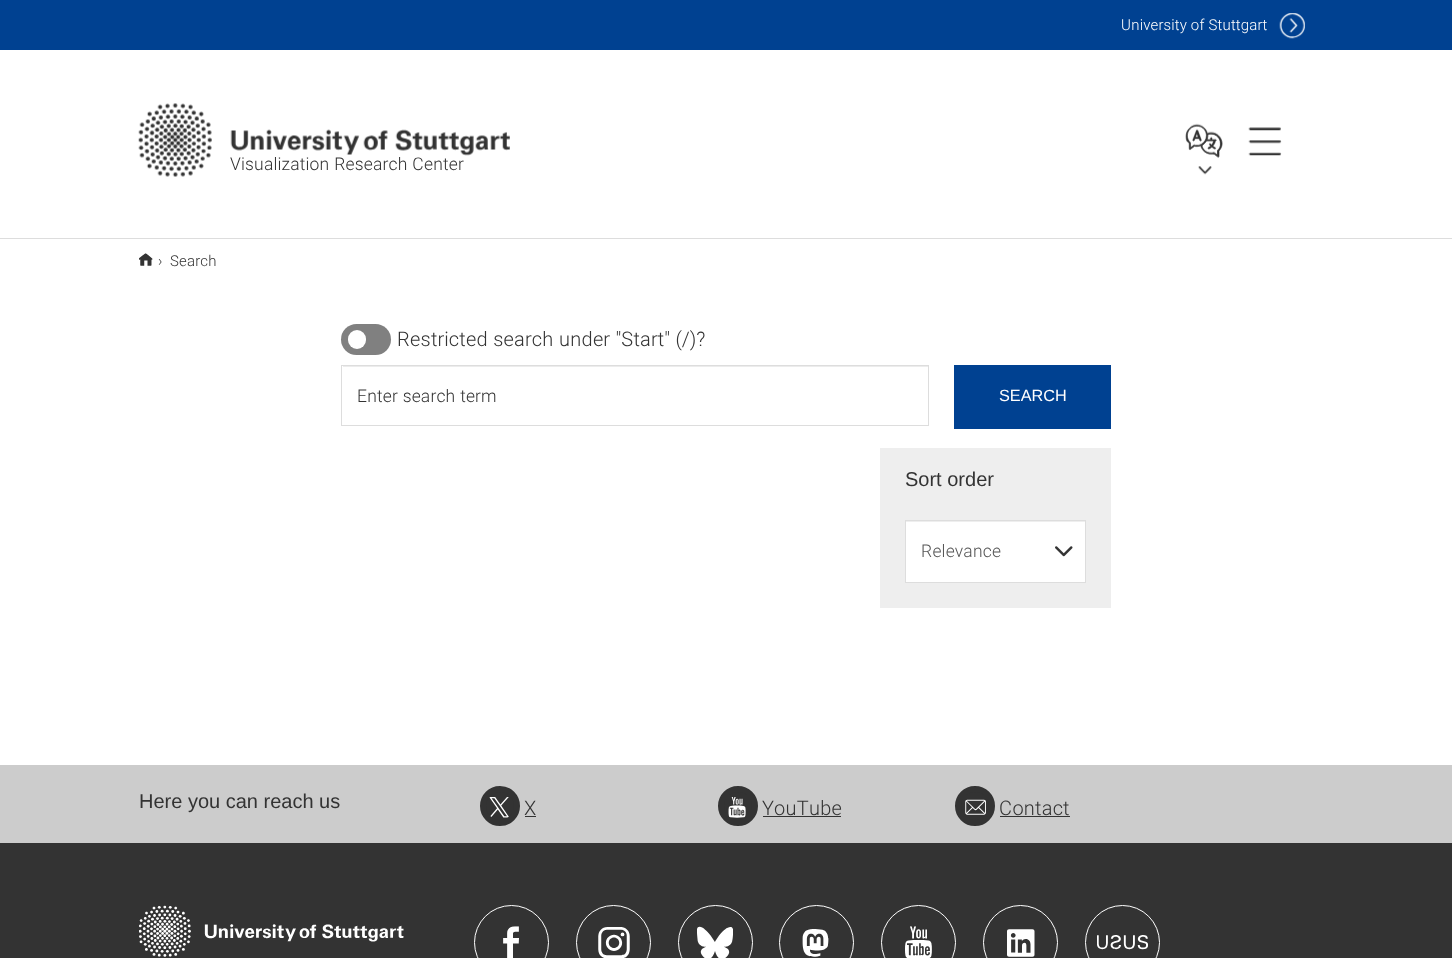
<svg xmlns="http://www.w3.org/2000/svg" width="1452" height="958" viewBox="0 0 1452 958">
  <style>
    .t1 { font: 300 15px Roboto; fill: #fff; }
    .t2 { font: 300 17.5px Roboto; fill: #333; }
    .t3 { font: 300 15px Roboto; fill: #333; }
    .t4 { font: 300 20px Roboto; fill: #333; }
    .t5 { font: 16.25px Liberation Sans; fill: #fff; }
    .t6 { font: 20px Liberation Sans; fill: #333; }
    .t7 { font: 300 17.5px Roboto; fill: #555; }
  </style>
  <rect width="100%" height="100%" fill="#fff"/>
  <rect x="0" y="0" width="1452" height="50" fill="#004191"/>
  <text x="1121" y="30" class="t1">University of Stuttgart</text>
  <image x="1279" y="13" width="26" height="26" href="images/1.png"/>
  <image x="1185" y="123" width="38" height="35" href="images/2.png"/>
  <image x="1198" y="166" width="14" height="9" href="images/3.png"/>
  <image x="1248" y="127" width="34" height="29" href="images/4.png"/>
  <image x="138" y="103" width="372" height="74" href="images/5.png"/>
  <text x="230" y="170" class="t2">Visualization Research Center</text>
  <rect x="0" y="238" width="1452" height="1" fill="#ddd"/>
  <image x="139" y="253" width="14" height="13" href="images/6.png"/>
  <text x="158" y="266" class="t3">›</text>
  <text x="170" y="266" class="t3">Search</text>
  <rect x="341" y="324" width="50" height="31" rx="15.5" fill="#808080"/>
  <rect x="348" y="330" width="18" height="19" rx="9" fill="#fff"/>
  <text x="397" y="346" class="t4">Restricted search under "Start" (/)?</text>
  <rect x="343" y="366" width="585" height="1" fill="#ececec"/>
  <rect x="341.5" y="365.5" width="587" height="60" fill="none" stroke="#ddd"/>
  <text x="357" y="402" class="t2">Enter search term</text>
  <rect x="954" y="365" width="157" height="64" fill="#004191"/>
  <text x="999" y="401" class="t5">SEARCH</text>
  <rect x="880" y="448" width="231" height="160" fill="#eee"/>
  <text x="905" y="486" class="t6">Sort order</text>
  <rect x="906" y="522" width="179" height="60" fill="#fff"/>
  <image x="1055" y="546" width="18" height="11" href="images/7.png"/>
  <rect x="905.5" y="520.5" width="180" height="62" fill="none" stroke="#ddd"/>
  <text x="921" y="557" class="t7">Relevance</text>
  <rect x="0" y="843" width="1452" height="115" fill="#333"/>
  <rect x="0" y="765" width="1452" height="78" fill="#ccc"/>
  <text x="139" y="808" class="t6">Here you can reach us</text>
  <circle cx="500" cy="806" r="17" fill="#333" stroke="#333" stroke-width="6"/>
  <image x="489" y="797" width="20" height="21" href="images/8.png"/>
  <text x="524" y="815" class="t4">X</text>
  <rect x="525" y="816" width="11" height="1" fill="#333"/>
  <circle cx="738" cy="806" r="17" fill="#333" stroke="#333" stroke-width="6"/>
  <image x="728" y="797" width="18" height="21" href="images/9.png"/>
  <text x="762" y="815" class="t4">YouTube</text>
  <rect x="763" y="816" width="78" height="1" fill="#333"/>
  <circle cx="975" cy="806" r="17" fill="#333" stroke="#333" stroke-width="6"/>
  <image x="965" y="799" width="21" height="16" href="images/10.png"/>
  <text x="999" y="815" class="t4">Contact</text>
  <rect x="1000" y="816" width="70" height="1" fill="#333"/>
  <image x="139" y="905" width="265" height="52" href="images/11.png"/>
  <circle cx="511.5" cy="942.5" r="37" fill="none" stroke="#fff"/>
  <image x="503" y="926" width="16" height="32" href="images/12.png"/>
  <circle cx="613.5" cy="942.5" r="37" fill="none" stroke="#fff"/>
  <image x="598" y="927" width="32" height="31" href="images/13.png"/>
  <circle cx="715.5" cy="942.5" r="37" fill="none" stroke="#fff"/>
  <image x="697" y="926" width="36" height="32" href="images/14.png"/>
  <circle cx="816.5" cy="942.5" r="37" fill="none" stroke="#fff"/>
  <image x="802" y="929" width="27" height="28" href="images/15.png"/>
  <circle cx="918.5" cy="942.5" r="37" fill="none" stroke="#fff"/>
  <image x="905" y="926" width="27" height="32" href="images/16.png"/>
  <circle cx="1020.5" cy="942.5" r="37" fill="none" stroke="#fff"/>
  <image x="1007" y="929" width="28" height="28" href="images/17.png"/>
  <circle cx="1122.5" cy="942.5" r="37" fill="none" stroke="#fff"/>
  <image x="1097" y="935" width="51" height="15" href="images/18.png"/>
</svg>
